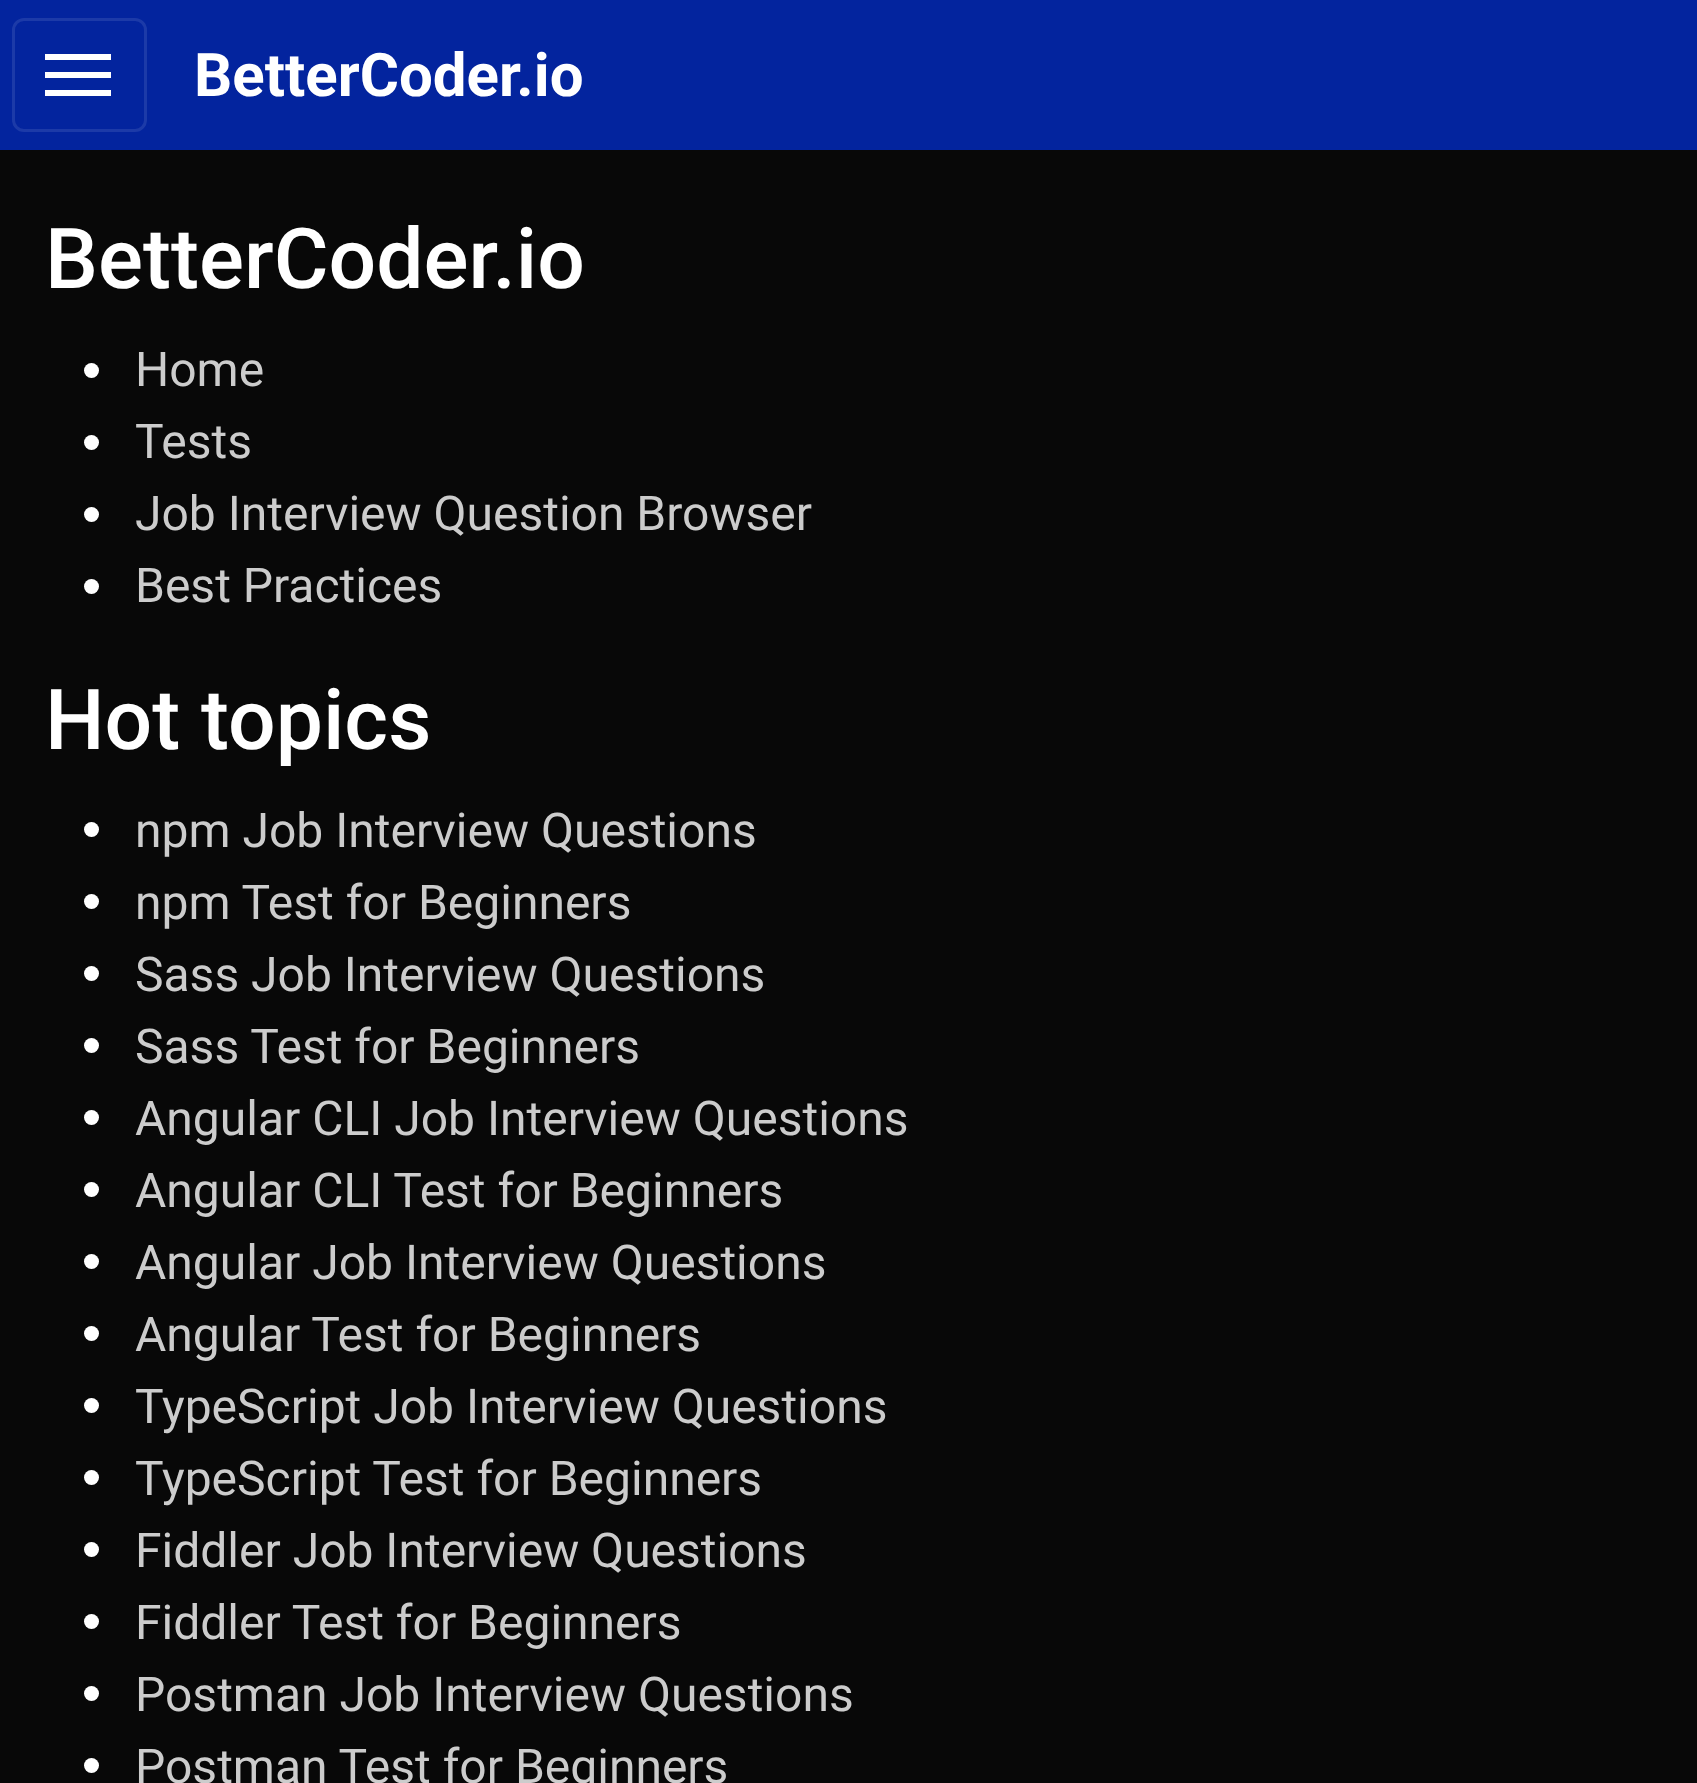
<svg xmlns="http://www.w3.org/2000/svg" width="1697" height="1783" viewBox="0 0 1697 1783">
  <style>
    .t1 { font: bold 60px Roboto; fill: #fff; }
    .t2 { font: 500 84px Roboto; fill: #fff; }
    .t3 { font: 48px Roboto; fill: #ccc; }
  </style>
  <rect width="100%" height="100%" fill="#080808"/>
  <rect x="0" y="0" width="1697" height="150" fill="#03249e"/>
  <rect x="13.5" y="19.5" width="132" height="111" rx="10.5" fill="none" stroke="#1c3aa8" stroke-width="3"/>
  <rect x="45" y="54" width="66" height="6" fill="#fff"/>
  <rect x="45" y="72" width="66" height="6" fill="#fff"/>
  <rect x="45" y="90" width="66" height="6" fill="#fff"/>
  <text x="194" y="96" class="t1">BetterCoder.io</text>
  <text x="45" y="288" class="t2">BetterCoder.io</text>
  <circle cx="91.5" cy="370.5" r="7.5" fill="#fff"/>
  <text x="135" y="386" class="t3">Home</text>
  <circle cx="91.5" cy="442.5" r="7.5" fill="#fff"/>
  <text x="135" y="458" class="t3">Tests</text>
  <circle cx="91.5" cy="514.5" r="7.5" fill="#fff"/>
  <text x="135" y="530" class="t3">Job Interview Question Browser</text>
  <circle cx="91.5" cy="586.5" r="7.5" fill="#fff"/>
  <text x="135" y="602" class="t3">Best Practices</text>
  <text x="45" y="749" class="t2">Hot topics</text>
  <circle cx="91.5" cy="829.5" r="7.5" fill="#fff"/>
  <text x="135" y="847" class="t3">npm Job Interview Questions</text>
  <circle cx="91.5" cy="901.5" r="7.5" fill="#fff"/>
  <text x="135" y="919" class="t3">npm Test for Beginners</text>
  <circle cx="91.5" cy="973.5" r="7.5" fill="#fff"/>
  <text x="135" y="991" class="t3">Sass Job Interview Questions</text>
  <circle cx="91.5" cy="1045.5" r="7.5" fill="#fff"/>
  <text x="135" y="1063" class="t3">Sass Test for Beginners</text>
  <circle cx="91.5" cy="1117.5" r="7.5" fill="#fff"/>
  <text x="135" y="1135" class="t3">Angular CLI Job Interview Questions</text>
  <circle cx="91.5" cy="1189.5" r="7.5" fill="#fff"/>
  <text x="135" y="1207" class="t3">Angular CLI Test for Beginners</text>
  <circle cx="91.5" cy="1261.5" r="7.5" fill="#fff"/>
  <text x="135" y="1279" class="t3">Angular Job Interview Questions</text>
  <circle cx="91.5" cy="1333.5" r="7.5" fill="#fff"/>
  <text x="135" y="1351" class="t3">Angular Test for Beginners</text>
  <circle cx="91.5" cy="1405.5" r="7.5" fill="#fff"/>
  <text x="135" y="1423" class="t3">TypeScript Job Interview Questions</text>
  <circle cx="91.5" cy="1477.5" r="7.5" fill="#fff"/>
  <text x="135" y="1495" class="t3">TypeScript Test for Beginners</text>
  <circle cx="91.5" cy="1549.5" r="7.5" fill="#fff"/>
  <text x="135" y="1567" class="t3">Fiddler Job Interview Questions</text>
  <circle cx="91.5" cy="1621.5" r="7.5" fill="#fff"/>
  <text x="135" y="1639" class="t3">Fiddler Test for Beginners</text>
  <circle cx="91.5" cy="1693.5" r="7.5" fill="#fff"/>
  <text x="135" y="1711" class="t3">Postman Job Interview Questions</text>
  <circle cx="91.5" cy="1765.5" r="7.5" fill="#fff"/>
  <text x="135" y="1783" class="t3">Postman Test for Beginners</text>
</svg>
